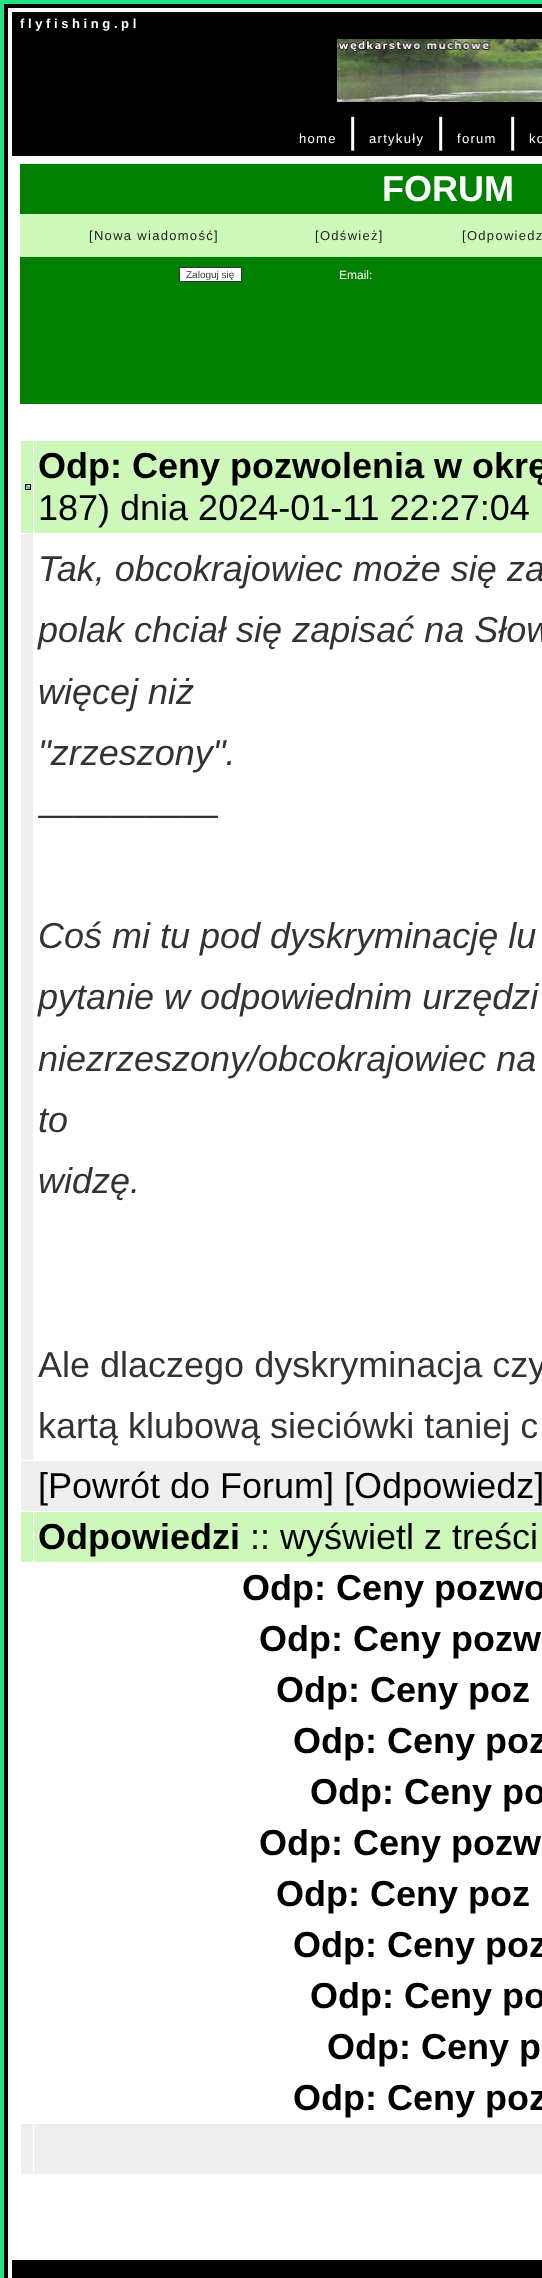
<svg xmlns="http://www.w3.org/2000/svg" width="542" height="2278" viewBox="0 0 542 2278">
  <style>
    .t1 { font: bold 13px Liberation Sans; fill: #fff; }
    .t2 { font: 13px Liberation Sans; letter-spacing: 1.3px; fill: #fff; }
    .t3 { font: 36px Liberation Sans; letter-spacing: 1px; fill: #fff; }
    .t4 { font: bold 36px Liberation Sans; fill: #fff; }
    .t5 { font: 13px Liberation Sans; letter-spacing: 1.3px; fill: #222; }
    .t6 { font: 10px Liberation Sans; fill: #333; }
    .t7 { font: 12px Liberation Sans; fill: #fff; }
    .t8 { font: bold 36px Liberation Sans; fill: #000; }
    .t9 { font: 36px Liberation Sans; fill: #000; }
    .t10 { font: italic 36px Liberation Sans; fill: #333; }
    .t11 { font: 36px Liberation Sans; fill: #333; }
  </style>
  <rect width="100%" height="100%" fill="#25e083"/>
  <rect x="4" y="4" width="538" height="2274" fill="#000"/>
  <rect x="8" y="8" width="534" height="2270" fill="#fff"/>
  <rect x="12" y="12" width="530" height="144" fill="#000"/>
  <text x="20" y="28" class="t1">f l y f i s h i n g . p l</text>
  <image x="337" y="39" width="205" height="63" href="images/1.png"/>
  <text x="299" y="143" class="t2">home</text>
  <text x="348" y="143" class="t3">|</text>
  <text x="369" y="143" class="t2">artykuły</text>
  <text x="436" y="143" class="t3">|</text>
  <text x="457" y="143" class="t2">forum</text>
  <text x="508" y="143" class="t3">|</text>
  <text x="529" y="143" class="t2">ko</text>
  <rect x="20" y="164" width="522" height="50" fill="#008000"/>
  <text x="382" y="201" class="t4">FORUM</text>
  <rect x="20" y="214" width="522" height="43" fill="#cef8ba"/>
  <text x="89" y="240" class="t5">[Nowa wiadomość]</text>
  <text x="315" y="240" class="t5">[Odśwież]</text>
  <text x="462" y="240" class="t5">[Odpowiedz</text>
  <rect x="20" y="257" width="522" height="147" fill="#008000"/>
  <rect x="179.5" y="267.5" width="62" height="14" fill="#fff" stroke="#333"/>
  <text x="186" y="278" class="t6">Zaloguj się</text>
  <text x="339" y="279" class="t7">Email:</text>
  <rect x="21" y="441" width="12" height="92" fill="#cef8ba"/>
  <rect x="25.5" y="484.5" width="5" height="5" fill="none" stroke="#000"/>
  <image x="26" y="485" width="4" height="4" href="images/2.png"/>
  <rect x="34" y="441" width="508" height="92" fill="#cef8ba"/>
  <text x="38" y="478" class="t8">Odp: Ceny pozwolenia w okrę</text>
  <text x="38" y="520" class="t9">187) dnia 2024-01-11 22:27:04</text>
  <rect x="21" y="534" width="12" height="926" fill="#efefef"/>
  <text x="38" y="581" class="t10">Tak, obcokrajowiec może się za</text>
  <text x="38" y="642" class="t10">polak chciał się zapisać na Słow</text>
  <text x="38" y="704" class="t10">więcej niż</text>
  <text x="38" y="765" class="t10">"zrzeszony".</text>
  <text x="38" y="826" class="t10">—————</text>
  <text x="38" y="948" class="t10">Coś mi tu pod dyskryminację lu</text>
  <text x="38" y="1009" class="t10">pytanie w odpowiednim urzędzi</text>
  <text x="38" y="1071" class="t10">niezrzeszony/obcokrajowiec na</text>
  <text x="38" y="1132" class="t10">to</text>
  <text x="38" y="1193" class="t10">widzę.</text>
  <text x="38" y="1377" class="t11">Ale dlaczego dyskryminacja czy</text>
  <text x="38" y="1438" class="t11">kartą klubową sieciówki taniej c</text>
  <rect x="21" y="1461" width="521" height="50" fill="#efefef"/>
  <text x="38" y="1498" class="t9">[Powrót do Forum] [Odpowiedz]</text>
  <rect x="21" y="1512" width="12" height="50" fill="#cef8ba"/>
  <rect x="34" y="1512" width="508" height="50" fill="#cef8ba"/>
  <text x="38" y="1549" class="t8">Odpowiedzi</text>
  <text x="250" y="1549" class="t9">:: wyświetl z treści</text>
  <text x="242" y="1600" class="t8">Odp: Ceny pozwo</text>
  <text x="259" y="1651" class="t8">Odp: Ceny pozw</text>
  <text x="276" y="1702" class="t8">Odp: Ceny poz</text>
  <text x="293" y="1753" class="t8">Odp: Ceny poz</text>
  <text x="310" y="1804" class="t8">Odp: Ceny po</text>
  <text x="259" y="1855" class="t8">Odp: Ceny pozw</text>
  <text x="276" y="1906" class="t8">Odp: Ceny poz</text>
  <text x="293" y="1957" class="t8">Odp: Ceny poz</text>
  <text x="310" y="2008" class="t8">Odp: Ceny po</text>
  <text x="327" y="2059" class="t8">Odp: Ceny p</text>
  <text x="293" y="2110" class="t8">Odp: Ceny poz</text>
  <rect x="21" y="2124" width="12" height="50" fill="#efefef"/>
  <rect x="34" y="2124" width="508" height="50" fill="#efefef"/>
  <rect x="12" y="2260" width="530" height="18" fill="#000"/>
</svg>
